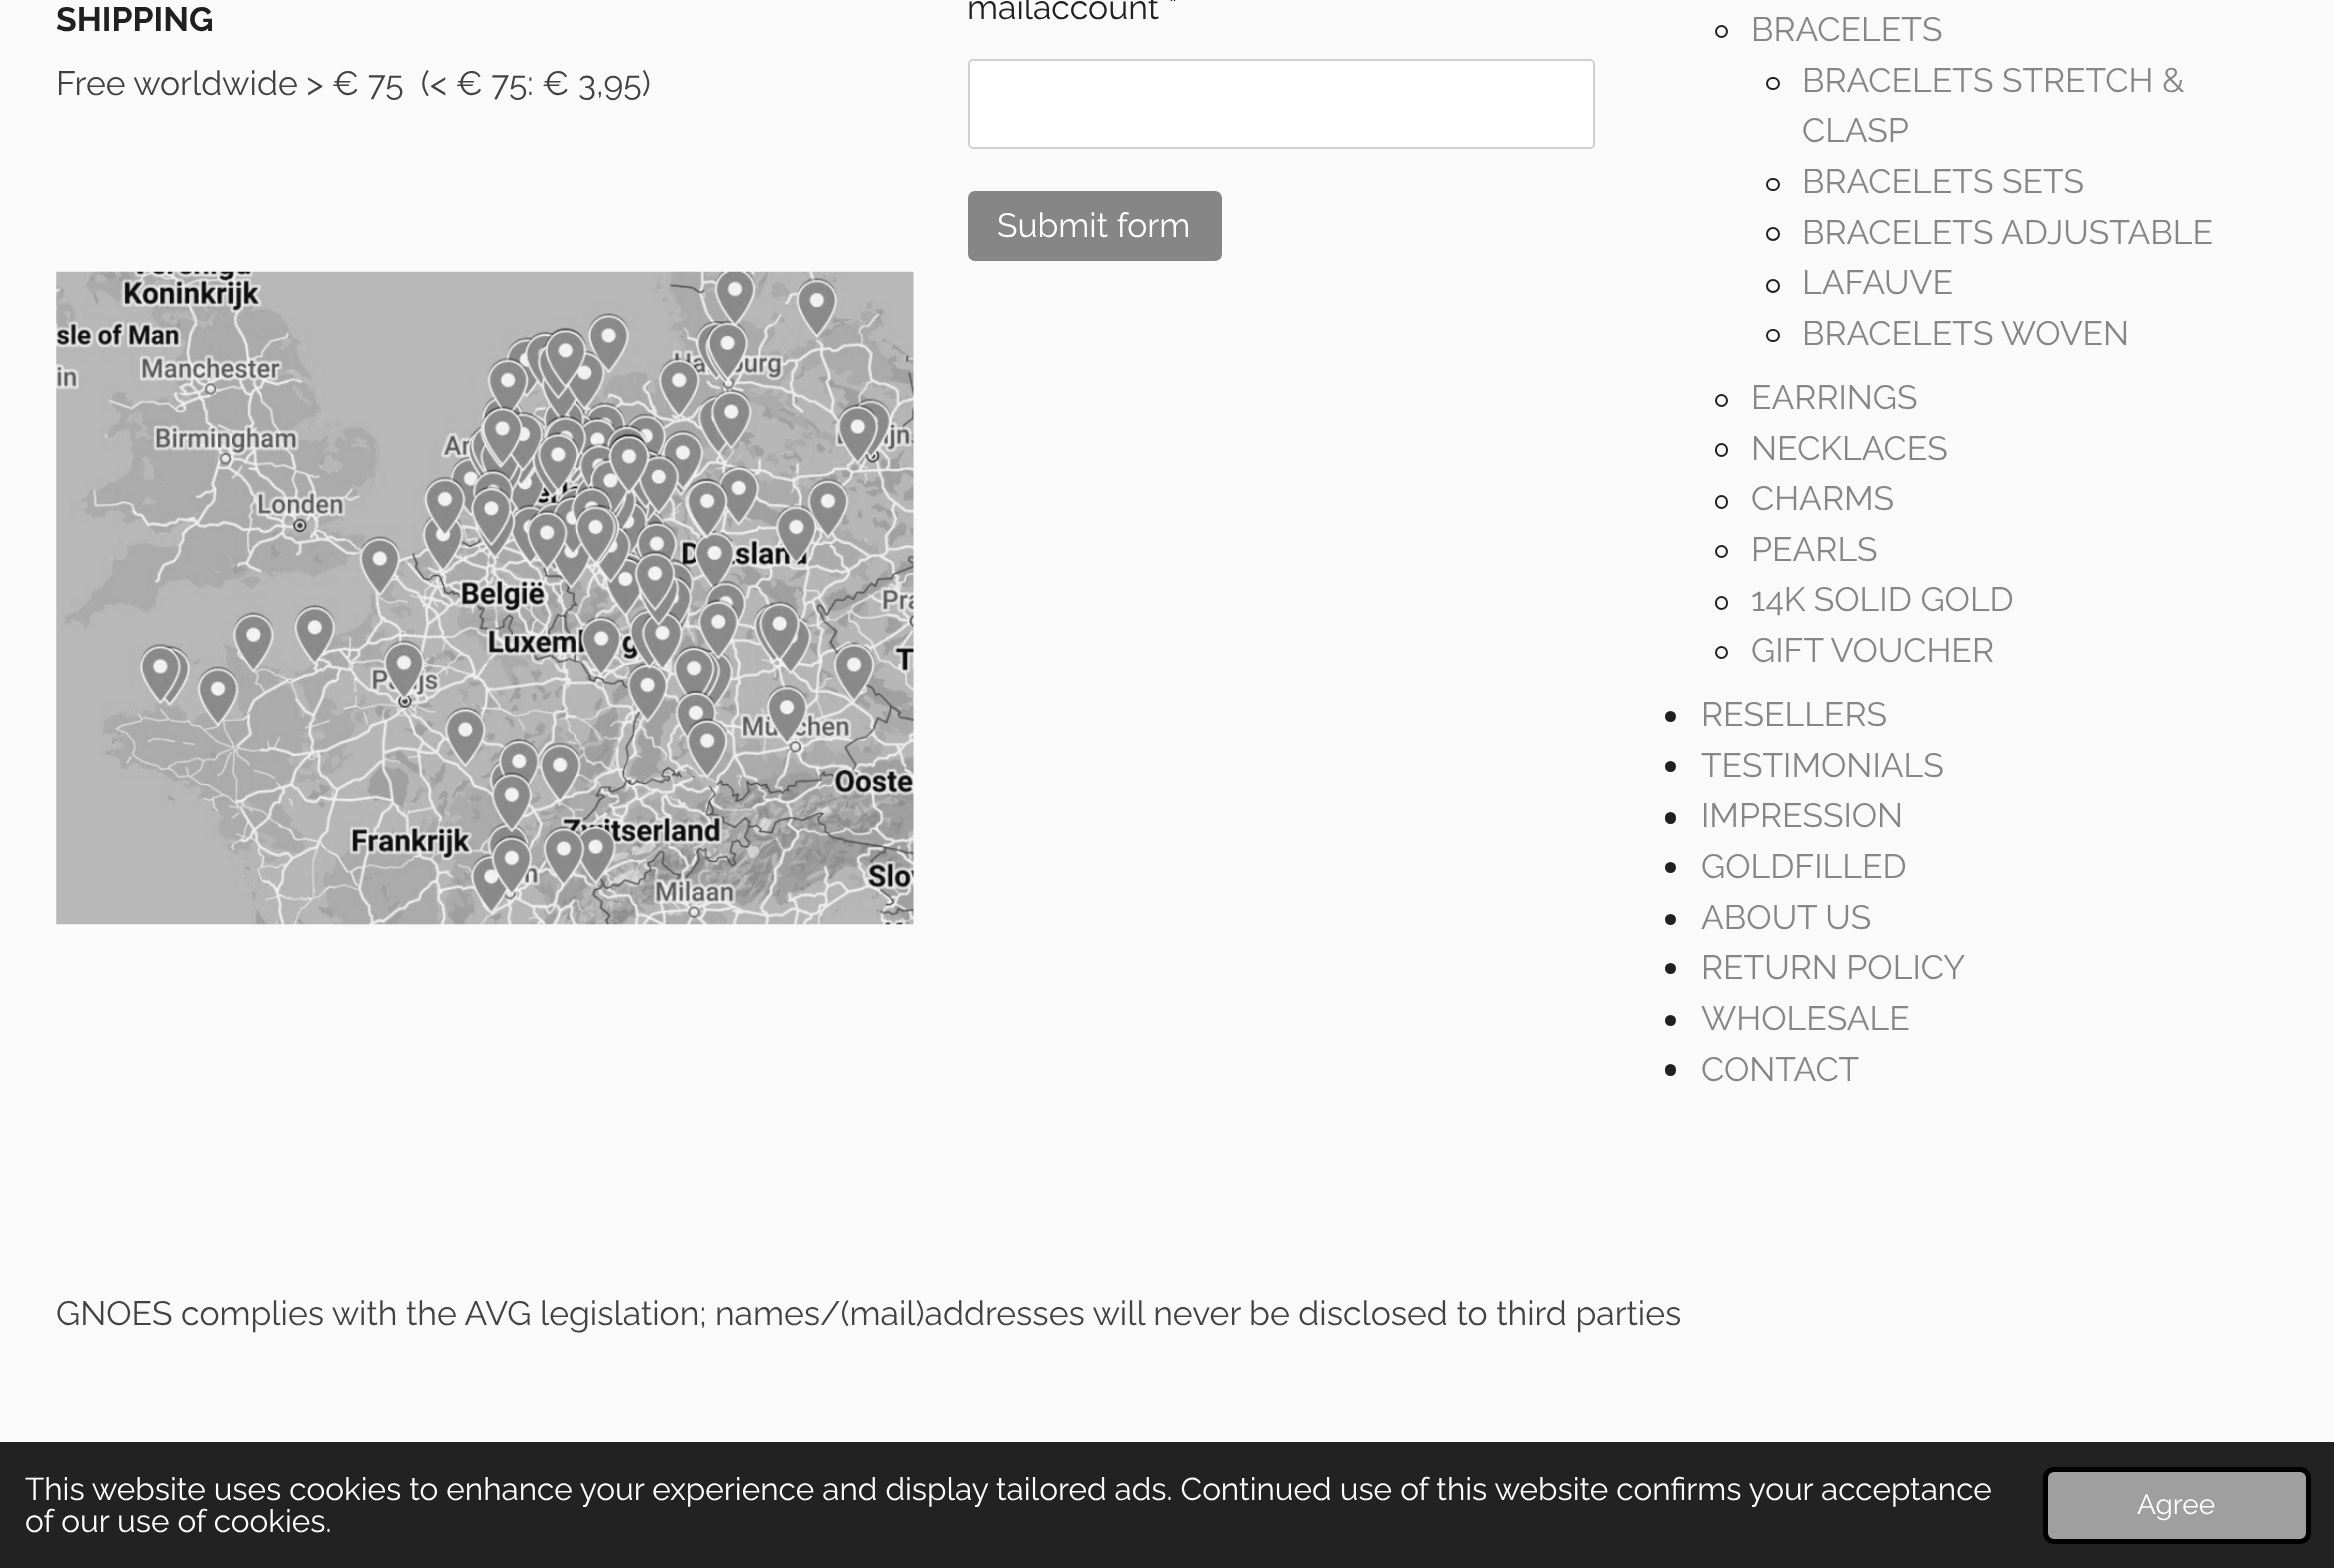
<svg xmlns="http://www.w3.org/2000/svg" width="2334" height="1568" viewBox="0 0 2334 1568">
  <style>
    .t1 { font: bold 33.75px Raleway; fill: #202020; }
    .t2 { font: 33.75px Raleway; fill: #424242; }
    .t3 { font: 33.75px Raleway; fill: #202020; }
    .t4 { font: 33.75px Raleway; fill: #fff; }
    .t5 { font: 33.75px Raleway; fill: #868686; }
    .t6 { font: 31.5px Raleway; fill: #fff; }
    .t7 { font: 28px Raleway; fill: #fff; }
  </style>
  <rect width="100%" height="100%" fill="#fafafa"/>
  <text x="56" y="31" class="t1">SHIPPING</text>
  <text x="56" y="95" class="t2" xml:space="preserve">Free worldwide &gt; € 75  (&lt; € 75: € 3,95)</text>
  <image x="56" y="271" width="858" height="654" href="images/1.png"/>
  <text x="967" y="19" class="t3">mailaccount *</text>
  <rect x="969" y="60" width="625" height="88" rx="4" fill="#fff" stroke="#d0d0d0" stroke-width="2"/>
  <rect x="968" y="191" width="254" height="70" rx="7" fill="#868686"/>
  <text x="997" y="237" class="t4">Submit form</text>
  <circle cx="1721.5" cy="31.5" r="5.5" fill="none" stroke="#202020" stroke-width="2"/>
  <text x="1751" y="41" class="t5">BRACELETS</text>
  <rect x="1767" y="78" width="12" height="11" rx="5.5" fill="none" stroke="#202020" stroke-width="2"/>
  <text x="1802" y="92" class="t5">BRACELETS STRETCH &amp;</text>
  <text x="1802" y="142" class="t5">CLASP</text>
  <rect x="1767" y="179" width="12" height="11" rx="5.5" fill="none" stroke="#202020" stroke-width="2"/>
  <text x="1802" y="193" class="t5">BRACELETS SETS</text>
  <circle cx="1773" cy="234" r="6" fill="none" stroke="#202020" stroke-width="2"/>
  <text x="1802" y="244" class="t5">BRACELETS ADJUSTABLE</text>
  <circle cx="1773" cy="286" r="6" fill="none" stroke="#202020" stroke-width="2"/>
  <text x="1802" y="294" class="t5">LAFAUVE</text>
  <rect x="1767" y="330" width="12" height="11" rx="5.5" fill="none" stroke="#202020" stroke-width="2"/>
  <text x="1802" y="345" class="t5">BRACELETS WOVEN</text>
  <circle cx="1721.5" cy="400.5" r="5.5" fill="none" stroke="#202020" stroke-width="2"/>
  <text x="1751" y="409" class="t5">EARRINGS</text>
  <rect x="1716" y="444" width="11" height="12" rx="5.5" fill="none" stroke="#202020" stroke-width="2"/>
  <text x="1751" y="460" class="t5">NECKLACES</text>
  <rect x="1716" y="496" width="11" height="12" rx="5.5" fill="none" stroke="#202020" stroke-width="2"/>
  <text x="1751" y="510" class="t5">CHARMS</text>
  <circle cx="1721.5" cy="551.5" r="5.5" fill="none" stroke="#202020" stroke-width="2"/>
  <text x="1751" y="561" class="t5">PEARLS</text>
  <rect x="1716" y="597" width="11" height="12" rx="5.5" fill="none" stroke="#202020" stroke-width="2"/>
  <text x="1751" y="611" class="t5">14K SOLID GOLD</text>
  <circle cx="1721.5" cy="652.5" r="5.5" fill="none" stroke="#202020" stroke-width="2"/>
  <text x="1751" y="662" class="t5">GIFT VOUCHER</text>
  <circle cx="1670.5" cy="716.5" r="5.5" fill="#202020"/>
  <text x="1701" y="726" class="t5">RESELLERS</text>
  <circle cx="1670.5" cy="766.5" r="5.5" fill="#202020"/>
  <text x="1701" y="777" class="t5">TESTIMONIALS</text>
  <rect x="1665" y="812" width="11" height="12" rx="5.5" fill="#202020"/>
  <text x="1701" y="827" class="t5">IMPRESSION</text>
  <circle cx="1670.5" cy="867.5" r="5.5" fill="#202020"/>
  <text x="1701" y="878" class="t5">GOLDFILLED</text>
  <circle cx="1670.5" cy="919.5" r="5.5" fill="#202020"/>
  <text x="1701" y="929" class="t5">ABOUT US</text>
  <circle cx="1670.5" cy="968.5" r="5.5" fill="#202020"/>
  <text x="1701" y="979" class="t5">RETURN POLICY</text>
  <circle cx="1670.5" cy="1020.5" r="5.5" fill="#202020"/>
  <text x="1701" y="1030" class="t5">WHOLESALE</text>
  <rect x="1665" y="1064" width="11" height="12" rx="5.5" fill="#202020"/>
  <text x="1701" y="1081" class="t5">CONTACT</text>
  <text x="56" y="1325" class="t2">GNOES complies with the AVG legislation; names/(mail)addresses will never be disclosed to third parties</text>
  <rect x="0" y="1442" width="2334" height="126" fill="#222"/>
  <text x="25" y="1500" class="t6">This website uses cookies to enhance your experience and display tailored ads. Continued use of this website confirms your acceptance</text>
  <text x="25" y="1532" class="t6">of our use of cookies.</text>
  <rect x="2045.5" y="1469.5" width="263" height="72" rx="8.5" fill="#9f9f9f" stroke="#000" stroke-width="5"/>
  <text x="2137" y="1514" class="t7">Agree</text>
</svg>
